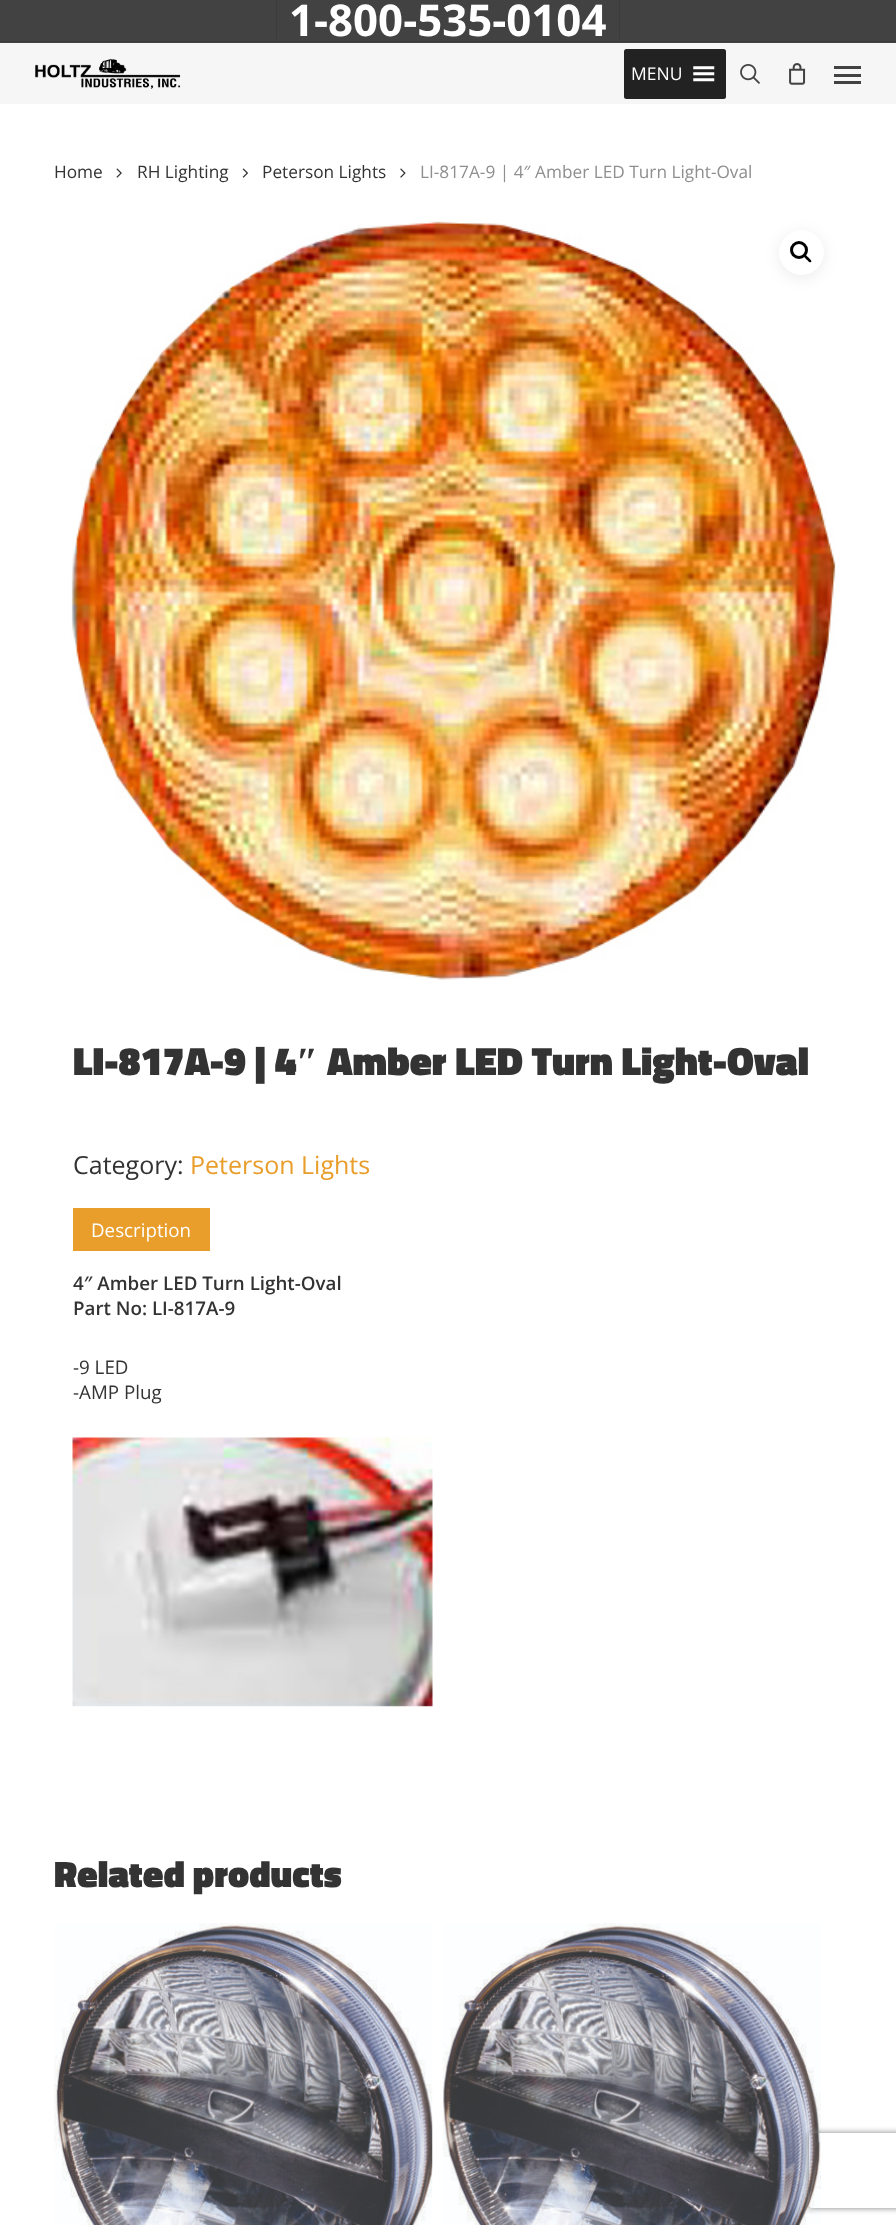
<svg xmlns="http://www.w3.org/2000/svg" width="896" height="2225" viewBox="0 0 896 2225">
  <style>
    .t1 { font: bold 43.75px Open Sans; fill: #fff; }
    .t2 { font: 17.5px Open Sans; fill: #fff; }
    .t3 { font: 17.25px Open Sans; fill: #333; }
    .t4 { font: 17.25px Open Sans; fill: #8f8f8f; }
    .t5 { font: 900 40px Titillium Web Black; fill: #333; }
    .t6 { font: bold 40px Liberation Serif; fill: #333; }
    .t7 { font: 25px Open Sans; fill: #333; }
    .t8 { font: 25px Open Sans; fill: #e99d2a; }
    .t9 { font: 18.75px Open Sans; fill: #fff; }
    .t10 { font: 600 18.75px Open Sans; fill: #333; }
    .t11 { font: 18.75px Open Sans; fill: #333; }
    .t12 { font: 900 37.5px Titillium Web Black; fill: #333; }
  </style>
  <defs>
    <clipPath id="clip1"><path d="M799 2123H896V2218H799ZM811.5 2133H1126.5C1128 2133 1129 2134 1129 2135.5V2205.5C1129 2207 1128 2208 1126.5 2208H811.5C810 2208 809 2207 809 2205.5V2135.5C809 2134 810 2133 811.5 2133Z" clip-rule="evenodd"/></clipPath>
  </defs>
  <rect width="100%" height="100%" fill="#fff"/>
  <rect x="0" y="43" width="896" height="61" fill="#f6f6f6"/>
  <rect x="0" y="0" width="896" height="43" fill="#424242"/>
  <rect x="0" y="41" width="896" height="1" fill="#3b3b3b"/>
  <rect x="619" y="0" width="1" height="39" fill="#3b3b3b"/>
  <rect x="276" y="0" width="1" height="39" fill="#3b3b3b"/>
  <text x="289" y="36" class="t1">1-800-535-0104</text>
  <image x="35" y="58" width="146" height="31" href="images/1.png"/>
  <rect x="624" y="49" width="102" height="50" rx="2.5" fill="#222"/>
  <text x="631" y="80" class="t2">MENU</text>
  <image x="693" y="66" width="22" height="16" href="images/2.png"/>
  <image x="740" y="64" width="20" height="20" href="images/3.png"/>
  <image x="789" y="63" width="17" height="22" href="images/4.png"/>
  <rect x="834" y="66" width="27" height="3" fill="#424242"/>
  <rect x="834" y="81" width="27" height="3" fill="#424242"/>
  <rect x="834" y="74" width="27" height="3" fill="#424242"/>
  <text x="54" y="178" class="t3">Home</text>
  <image x="116" y="168" width="6" height="10" href="images/5.png"/>
  <text x="137" y="178" class="t3">RH Lighting</text>
  <image x="242" y="168" width="6" height="10" href="images/6.png"/>
  <text x="262" y="178" class="t3">Peterson Lights</text>
  <image x="400" y="168" width="6" height="10" href="images/7.png"/>
  <text x="420" y="178" class="t4">LI-817A-9 | 4″ Amber LED Turn Light-Oval</text>
  <image x="71" y="221" width="765" height="759" href="images/8.png"/>
  <rect x="779" y="233" width="45" height="45" rx="22.5" fill="#00000014" filter="blur(7.5px)"/>
  <circle cx="801.5" cy="252.5" r="22.5" fill="#fff"/>
  <circle cx="799" cy="250" r="7.5" fill="none" stroke="#000" stroke-width="3"/>
  <path d="M804 255C805.5 253.5 807.5 257 808.5 257.5C809 258.5 812.5 260.5 811 262C809.5 263.5 807.5 260 806.5 259.5C806 258.5 802.5 256.5 804 255Z" fill="#000"/>
  <text x="73" y="1075" class="t5">LI-817A-9 | 4</text>
  <text x="296" y="1075" class="t6">″</text>
  <text x="327" y="1075" class="t5">Amber LED Turn Light-Oval</text>
  <text x="73" y="1174" class="t7">Category:</text>
  <text x="190" y="1174" class="t8">Peterson Lights</text>
  <rect x="73" y="1208" width="137" height="43" fill="#e99d2a"/>
  <text x="91" y="1237" class="t9">Description</text>
  <text x="73" y="1290" class="t10">4″ Amber LED Turn Light-Oval</text>
  <text x="73" y="1315" class="t10">Part No: LI-817A-9</text>
  <text x="73" y="1374" class="t11">-9 LED</text>
  <text x="73" y="1399" class="t11">-AMP Plug</text>
  <image x="72" y="1437" width="361" height="270" href="images/9.png"/>
  <text x="54" y="1887" class="t12">Related products</text>
  <image x="54" y="1923" width="379" height="302" href="images/10.png"/>
  <image x="442" y="1923" width="379" height="302" href="images/11.png"/>
  <g clip-path="url(#clip1)">
    <rect x="809" y="2133" width="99" height="75" rx="2.5" fill="#808080" filter="blur(3px)"/>
  </g>
</svg>
